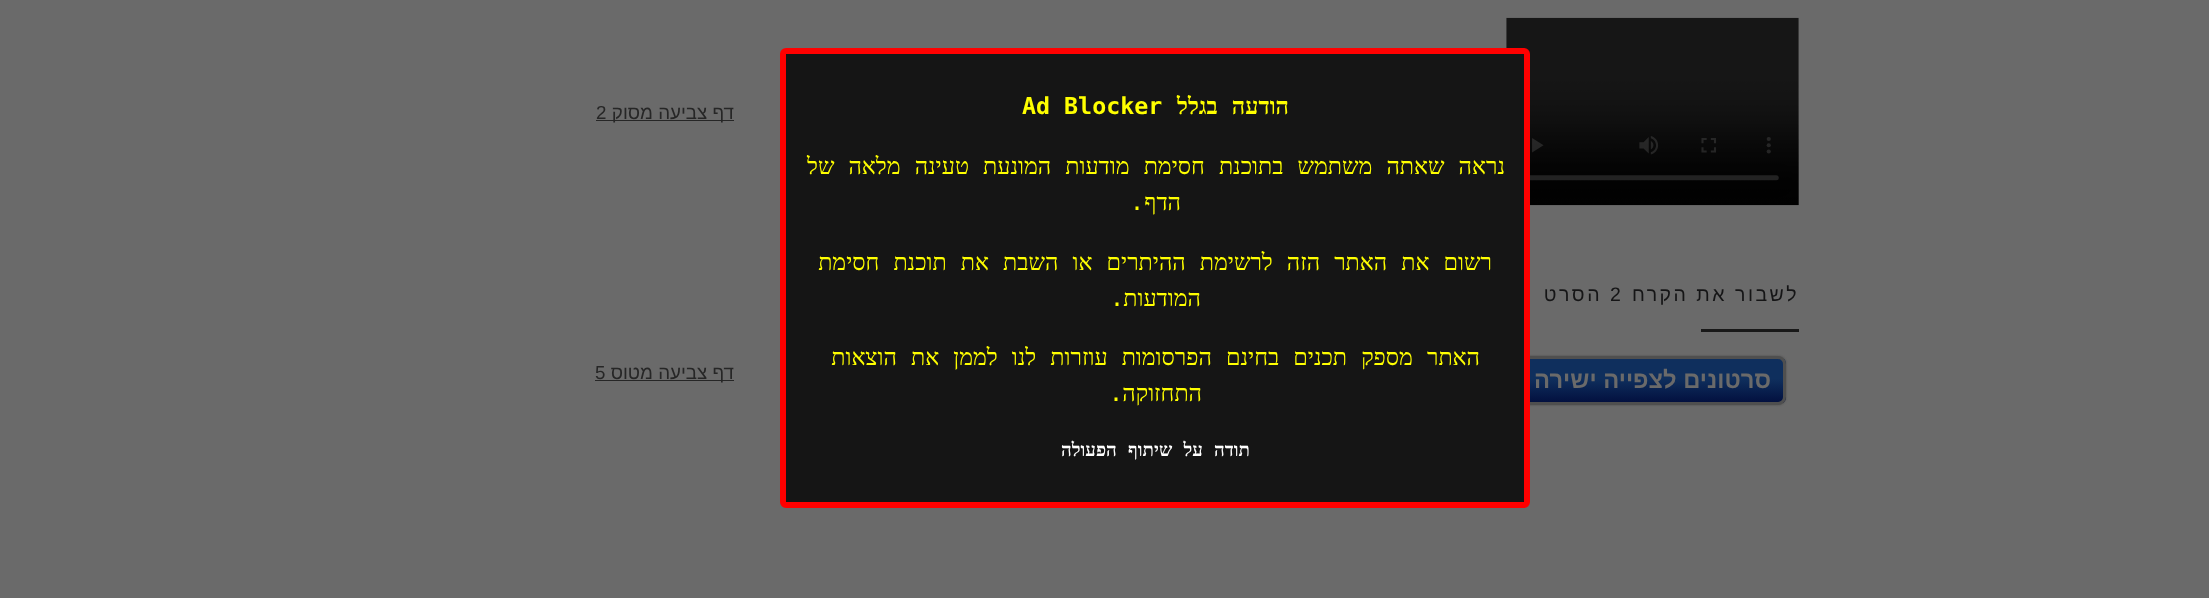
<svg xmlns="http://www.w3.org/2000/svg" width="2209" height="598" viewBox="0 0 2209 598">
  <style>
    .t1 { font: bold 23.3px Liberation Serif; direction: rtl; fill: #ff0; }
    .t2 { font: bold 23.3px DejaVu Sans Mono; fill: #ff0; }
    .t3 { font: 23.3px Liberation Serif; direction: rtl; fill: #ff0; }
    .t4 { font: 23.3px DejaVu Sans Mono; direction: rtl; fill: #ff0; }
    .t5 { font: bold 18.75px Liberation Serif; direction: rtl; fill: #fff; }
    .t6 { font: 19.5px Liberation Sans; letter-spacing: 2.5px; direction: rtl; fill: #151516; }
    .t7 { font: 19.5px Liberation Sans; letter-spacing: 2.5px; fill: #151516; }
    .t8 { font: bold 23.75px Liberation Sans; direction: rtl; fill: #6a6a6a; }
    .t9 { font: 18.75px Liberation Sans; direction: rtl; fill: #262626; }
    .t10 { font: 18.75px Liberation Sans; fill: #262626; }
  </style>
  <defs>
    <clipPath id="clip1"><rect x="1519" y="356" width="267" height="49" rx="8"/></clipPath>
    <linearGradient id="g1" gradientUnits="userSpaceOnUse" x1="1653" y1="359" x2="1653" y2="403"><stop offset="0.45" stop-color="#0f2f5d"/><stop offset="1" stop-color="#020f3e"/></linearGradient>
  </defs>
  <rect width="100%" height="100%" fill="#6a6a6a"/>
  <image x="1506" y="17" width="293" height="189" href="images/1.png"/>
  <rect x="1519" y="356" width="267" height="49" rx="8" fill="#4f4f4f" filter="blur(1px)"/>
  <g clip-path="url(#clip1)">
    <rect x="1530" y="359" width="256" height="44" fill="url(#g1)"/>
  </g>
  <rect x="1520.5" y="357.5" width="264" height="46" rx="6.5" fill="none" stroke="#4f4f4f" stroke-width="3"/>
  <rect x="783" y="51" width="744" height="454" rx="3" fill="#151515" stroke="#f00" stroke-width="6"/>
  <text x="1289" y="114" word-spacing="8.25" class="t1">הודעה בגלל</text>
  <text x="1022" y="114" class="t2">Ad Blocker</text>
  <text x="1505" y="174" word-spacing="8.25" class="t3">נראה שאתה משתמש בתוכנת חסימת מודעות המונעת טעינה מלאה של</text>
  <text x="1181" y="210" class="t3">הדף</text>
  <text x="1144" y="210" class="t4">.</text>
  <text x="1492" y="270" word-spacing="8.25" class="t3">רשום את האתר הזה לרשימת ההיתרים או השבת את תוכנת חסימת</text>
  <text x="1201" y="306" class="t3">המודעות</text>
  <text x="1124" y="306" class="t4">.</text>
  <text x="1480" y="365" word-spacing="8.25" class="t3">האתר מספק תכנים בחינם הפרסומות עוזרות לנו לממן את הוצאות</text>
  <text x="1202" y="401" class="t3">התחזוקה</text>
  <text x="1123" y="401" class="t4">.</text>
  <text x="1250" y="456" word-spacing="6.5" class="t5">תודה על שיתוף הפעולה</text>
  <text x="1799" y="301" class="t6">לשבור את הקרח</text>
  <text x="1610" y="301" class="t7">2</text>
  <text x="1602" y="301" class="t6">הסרט</text>
  <rect x="1701" y="329" width="98" height="3" fill="#191919"/>
  <text x="1771" y="388" class="t8">סרטונים לצפייה ישירה</text>
  <rect x="596" y="120" width="138" height="1" fill="#262626"/>
  <text x="734" y="119" class="t9">דף צביעה מסוק</text>
  <text x="596" y="119" class="t10">2</text>
  <rect x="595" y="380" width="139" height="1" fill="#262626"/>
  <text x="734" y="379" class="t9">דף צביעה מטוס</text>
  <text x="595" y="379" class="t10">5</text>
</svg>
